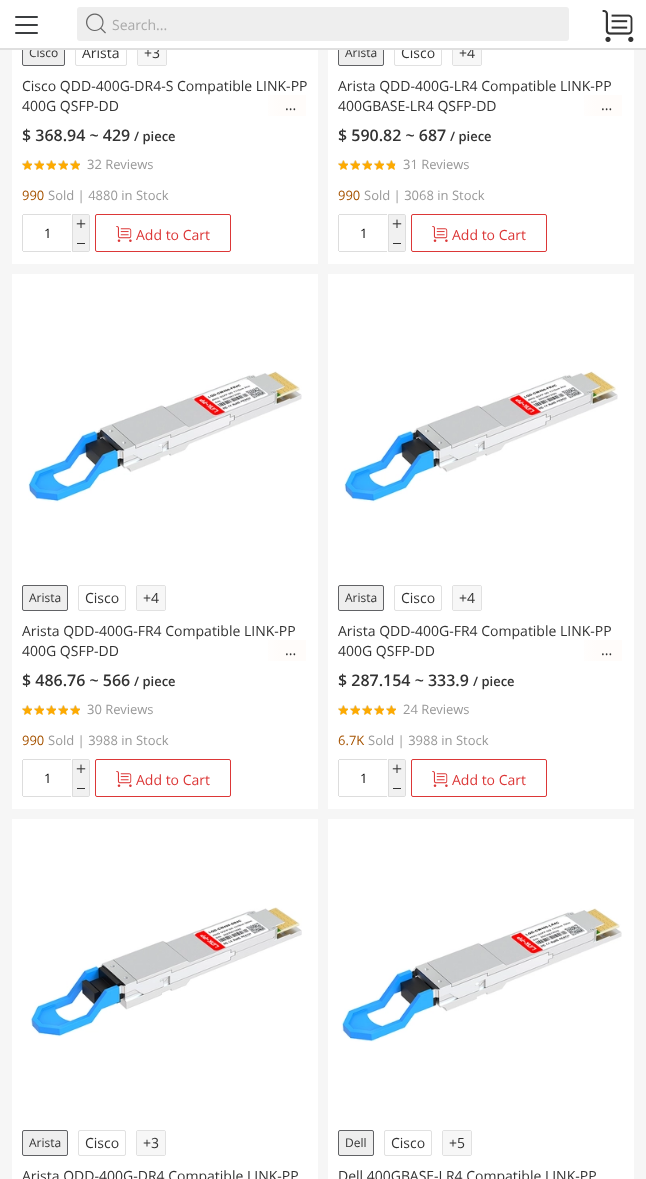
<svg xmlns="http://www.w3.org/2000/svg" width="646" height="1179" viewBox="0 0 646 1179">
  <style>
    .t1 { font: 14px Open Sans; fill: #333; }
    .t2 { font: 12px Open Sans; fill: #333; }
    .t3 { font: 14px Open Sans; fill: #aaa; }
    .t4 { font: 600 16px Open Sans; fill: #333; }
    .t5 { font: 600 13px Open Sans; fill: #333; }
    .t6 { font: 13px Open Sans; fill: #999; }
    .t7 { font: 13px Open Sans; fill: #a65300; }
    .t8 { font: 13px Open Sans; fill: #000; }
    .t9 { font: 14px Open Sans; fill: #dc3737; }
  </style>
  <defs>
    <linearGradient id="g1" gradientUnits="userSpaceOnUse" x1="255" y1="106" x2="306" y2="106"><stop offset="0" stop-color="#fff"/><stop offset="0.5" stop-color="#fffcfa"/></linearGradient>
    <linearGradient id="g2" gradientUnits="userSpaceOnUse" x1="571" y1="106" x2="622" y2="106"><stop offset="0" stop-color="#fff"/><stop offset="0.5" stop-color="#fffcfa"/></linearGradient>
    <linearGradient id="g3" gradientUnits="userSpaceOnUse" x1="255" y1="651" x2="306" y2="651"><stop offset="0" stop-color="#fff"/><stop offset="0.5" stop-color="#fffcfa"/></linearGradient>
    <linearGradient id="g4" gradientUnits="userSpaceOnUse" x1="571" y1="651" x2="622" y2="651"><stop offset="0" stop-color="#fff"/><stop offset="0.5" stop-color="#fffcfa"/></linearGradient>
  </defs>
  <rect width="100%" height="100%" fill="#f6f6f6"/>
  <rect x="12" y="50" width="306" height="214" fill="#fff"/>
  <rect x="22.5" y="40.5" width="42" height="25" rx="1.5" fill="#eee" stroke="#616265"/>
  <rect x="75.5" y="40.5" width="51" height="25" rx="1.5" fill="none" stroke="#e1e1e1"/>
  <text x="82" y="58" class="t1">Arista</text>
  <rect x="137.5" y="40.5" width="29" height="25" rx="1.5" fill="none" stroke="#e1e1e1"/>
  <rect x="138" y="50" width="28" height="15" fill="#f7f7f7"/>
  <text x="144" y="58" class="t1">+3</text>
  <rect x="328" y="50" width="306" height="214" fill="#fff"/>
  <rect x="338.5" y="40.5" width="45" height="25" rx="1.5" fill="#eee" stroke="#616265"/>
  <rect x="394.5" y="40.5" width="47" height="25" rx="1.5" fill="none" stroke="#e1e1e1"/>
  <text x="401" y="58" class="t1">Cisco</text>
  <rect x="452.5" y="40.5" width="29" height="25" rx="1.5" fill="none" stroke="#e1e1e1"/>
  <rect x="453" y="50" width="28" height="15" fill="#f7f7f7"/>
  <text x="459" y="58" class="t1">+4</text>
  <rect x="0" y="0" width="646" height="48" fill="#fff"/>
  <text x="29" y="57" class="t2">Cisco</text>
  <text x="345" y="57" class="t2">Arista</text>
  <rect x="0" y="48" width="646" height="2" fill="#dfdfdf"/>
  <rect x="15" y="16" width="23" height="2" rx="1" fill="#3b3e40"/>
  <rect x="15" y="24" width="23" height="2" rx="1" fill="#3b3e40"/>
  <rect x="15" y="32" width="23" height="2" rx="1" fill="#3b3e40"/>
  <image x="602" y="10" width="32" height="32" href="images/1.png"/>
  <rect x="77" y="7" width="492" height="34" rx="3" fill="#eee"/>
  <image x="86" y="13" width="20" height="21" href="images/2.png"/>
  <text x="112" y="30" class="t3">Search...</text>
  <text x="22" y="91" class="t1">Cisco QDD-400G-DR4-S Compatible LINK-PP</text>
  <text x="22" y="111" class="t1">400G QSFP-DD</text>
  <rect x="268" y="95" width="38" height="21" fill="url(#g1)"/>
  <text x="285" y="110" class="t1">...</text>
  <text x="22" y="141" class="t4">$ 368.94 ~ 429</text>
  <text x="134" y="141" class="t5">/ piece</text>
  <image x="22" y="160" width="10" height="9" href="images/3.png"/>
  <image x="22" y="160" width="10" height="10" href="images/4.png"/>
  <image x="34" y="160" width="10" height="9" href="images/3.png"/>
  <image x="34" y="160" width="10" height="10" href="images/4.png"/>
  <image x="46" y="160" width="10" height="9" href="images/3.png"/>
  <image x="46" y="160" width="10" height="10" href="images/4.png"/>
  <image x="58" y="160" width="10" height="9" href="images/3.png"/>
  <image x="58" y="160" width="10" height="10" href="images/4.png"/>
  <image x="70" y="160" width="10" height="9" href="images/5.png"/>
  <image x="70" y="160" width="10" height="10" href="images/6.png"/>
  <text x="87" y="169" class="t6">32 Reviews</text>
  <text x="22" y="200" class="t7">990</text>
  <text x="48" y="200" class="t6">Sold | 4880 in Stock</text>
  <rect x="23" y="214" width="48" height="1" fill="#ddd"/>
  <rect x="23" y="251" width="48" height="1" fill="#ddd"/>
  <rect x="22" y="215" width="1" height="36" fill="#ddd"/>
  <text x="44" y="238" class="t8">1</text>
  <path d="M72.5 214.5H88C89 214.5 89.5 215 89.5 216V250C89.5 251 89 251.5 88 251.5H72.5Z" fill="#f1f1f1" stroke="#ddd"/>
  <image x="76" y="219" width="10" height="9" href="images/7.png"/>
  <rect x="77" y="243" width="8" height="1" fill="#333"/>
  <rect x="95.5" y="214.5" width="135" height="37" rx="1.5" fill="none" stroke="#dc3737"/>
  <image x="116" y="226" width="16" height="16" href="images/8.png"/>
  <text x="136" y="240" class="t9">Add to Cart</text>
  <text x="338" y="91" class="t1">Arista QDD-400G-LR4 Compatible LINK-PP</text>
  <text x="338" y="111" class="t1">400GBASE-LR4 QSFP-DD</text>
  <rect x="584" y="95" width="38" height="21" fill="url(#g2)"/>
  <text x="601" y="110" class="t1">...</text>
  <text x="338" y="141" class="t4">$ 590.82 ~ 687</text>
  <text x="450" y="141" class="t5">/ piece</text>
  <image x="338" y="160" width="10" height="9" href="images/5.png"/>
  <image x="338" y="160" width="10" height="10" href="images/6.png"/>
  <image x="350" y="160" width="10" height="9" href="images/3.png"/>
  <image x="350" y="160" width="10" height="10" href="images/4.png"/>
  <image x="362" y="160" width="10" height="9" href="images/5.png"/>
  <image x="362" y="160" width="10" height="10" href="images/6.png"/>
  <image x="374" y="160" width="10" height="9" href="images/5.png"/>
  <image x="374" y="160" width="10" height="10" href="images/6.png"/>
  <image x="386" y="160" width="10" height="9" href="images/5.png"/>
  <image x="386" y="160" width="9" height="10" href="images/9.png"/>
  <text x="403" y="169" class="t6">31 Reviews</text>
  <text x="338" y="200" class="t7">990</text>
  <text x="364" y="200" class="t6">Sold | 3068 in Stock</text>
  <rect x="339" y="214" width="48" height="1" fill="#ddd"/>
  <rect x="339" y="251" width="48" height="1" fill="#ddd"/>
  <rect x="338" y="215" width="1" height="36" fill="#ddd"/>
  <text x="360" y="238" class="t8">1</text>
  <path d="M388.5 214.5H404C405 214.5 405.5 215 405.5 216V250C405.5 251 405 251.5 404 251.5H388.5Z" fill="#f1f1f1" stroke="#ddd"/>
  <image x="392" y="219" width="10" height="9" href="images/7.png"/>
  <rect x="393" y="243" width="8" height="1" fill="#333"/>
  <rect x="411.5" y="214.5" width="135" height="37" rx="1.5" fill="none" stroke="#dc3737"/>
  <image x="432" y="226" width="16" height="16" href="images/8.png"/>
  <text x="452" y="240" class="t9">Add to Cart</text>
  <rect x="12" y="274" width="306" height="535" fill="#fff"/>
  <image x="28" y="371" width="274" height="132" href="images/10.png"/>
  <rect x="22.5" y="585.5" width="45" height="25" rx="1.5" fill="#eee" stroke="#616265"/>
  <text x="29" y="602" class="t2">Arista</text>
  <rect x="78.5" y="585.5" width="47" height="25" rx="1.5" fill="none" stroke="#e1e1e1"/>
  <text x="85" y="603" class="t1">Cisco</text>
  <rect x="136.5" y="585.5" width="29" height="25" rx="1.5" fill="none" stroke="#e1e1e1"/>
  <rect x="137" y="586" width="28" height="24" fill="#f7f7f7"/>
  <text x="143" y="603" class="t1">+4</text>
  <text x="22" y="636" class="t1">Arista QDD-400G-FR4 Compatible LINK-PP</text>
  <text x="22" y="656" class="t1">400G QSFP-DD</text>
  <rect x="268" y="640" width="38" height="21" fill="url(#g3)"/>
  <text x="285" y="655" class="t1">...</text>
  <text x="22" y="686" class="t4">$ 486.76 ~ 566</text>
  <text x="134" y="686" class="t5">/ piece</text>
  <image x="22" y="705" width="10" height="9" href="images/3.png"/>
  <image x="22" y="705" width="10" height="10" href="images/4.png"/>
  <image x="34" y="705" width="10" height="9" href="images/3.png"/>
  <image x="34" y="705" width="10" height="10" href="images/4.png"/>
  <image x="46" y="705" width="10" height="9" href="images/3.png"/>
  <image x="46" y="705" width="10" height="10" href="images/4.png"/>
  <image x="58" y="705" width="10" height="9" href="images/3.png"/>
  <image x="58" y="705" width="10" height="10" href="images/4.png"/>
  <image x="70" y="705" width="10" height="9" href="images/5.png"/>
  <image x="70" y="705" width="10" height="10" href="images/6.png"/>
  <text x="87" y="714" class="t6">30 Reviews</text>
  <text x="22" y="745" class="t7">990</text>
  <text x="48" y="745" class="t6">Sold | 3988 in Stock</text>
  <rect x="23" y="759" width="48" height="1" fill="#ddd"/>
  <rect x="23" y="796" width="48" height="1" fill="#ddd"/>
  <rect x="22" y="760" width="1" height="36" fill="#ddd"/>
  <text x="44" y="783" class="t8">1</text>
  <path d="M72.5 759.5H88C89 759.5 89.5 760 89.5 761V795C89.5 796 89 796.5 88 796.5H72.5Z" fill="#f1f1f1" stroke="#ddd"/>
  <image x="76" y="764" width="10" height="9" href="images/7.png"/>
  <rect x="77" y="788" width="8" height="1" fill="#333"/>
  <rect x="95.5" y="759.5" width="135" height="37" rx="1.5" fill="none" stroke="#dc3737"/>
  <image x="116" y="771" width="16" height="16" href="images/8.png"/>
  <text x="136" y="785" class="t9">Add to Cart</text>
  <rect x="328" y="274" width="306" height="535" fill="#fff"/>
  <image x="344" y="371" width="274" height="132" href="images/11.png"/>
  <rect x="338.5" y="585.5" width="45" height="25" rx="1.5" fill="#eee" stroke="#616265"/>
  <text x="345" y="602" class="t2">Arista</text>
  <rect x="394.5" y="585.5" width="47" height="25" rx="1.5" fill="none" stroke="#e1e1e1"/>
  <text x="401" y="603" class="t1">Cisco</text>
  <rect x="452.5" y="585.5" width="29" height="25" rx="1.5" fill="none" stroke="#e1e1e1"/>
  <rect x="453" y="586" width="28" height="24" fill="#f7f7f7"/>
  <text x="459" y="603" class="t1">+4</text>
  <text x="338" y="636" class="t1">Arista QDD-400G-FR4 Compatible LINK-PP</text>
  <text x="338" y="656" class="t1">400G QSFP-DD</text>
  <rect x="584" y="640" width="38" height="21" fill="url(#g4)"/>
  <text x="601" y="655" class="t1">...</text>
  <text x="338" y="686" class="t4">$ 287.154 ~ 333.9</text>
  <text x="473" y="686" class="t5">/ piece</text>
  <image x="338" y="705" width="10" height="9" href="images/5.png"/>
  <image x="338" y="705" width="10" height="10" href="images/6.png"/>
  <image x="350" y="705" width="10" height="9" href="images/3.png"/>
  <image x="350" y="705" width="10" height="10" href="images/4.png"/>
  <image x="362" y="705" width="10" height="9" href="images/5.png"/>
  <image x="362" y="705" width="10" height="10" href="images/6.png"/>
  <image x="374" y="705" width="10" height="9" href="images/5.png"/>
  <image x="374" y="705" width="10" height="10" href="images/6.png"/>
  <image x="386" y="705" width="10" height="9" href="images/5.png"/>
  <image x="386" y="705" width="10" height="10" href="images/6.png"/>
  <text x="403" y="714" class="t6">24 Reviews</text>
  <text x="338" y="745" class="t7">6.7K</text>
  <text x="368" y="745" class="t6">Sold | 3988 in Stock</text>
  <rect x="339" y="759" width="48" height="1" fill="#ddd"/>
  <rect x="339" y="796" width="48" height="1" fill="#ddd"/>
  <rect x="338" y="760" width="1" height="36" fill="#ddd"/>
  <text x="360" y="783" class="t8">1</text>
  <path d="M388.5 759.5H404C405 759.5 405.5 760 405.5 761V795C405.5 796 405 796.5 404 796.5H388.5Z" fill="#f1f1f1" stroke="#ddd"/>
  <image x="392" y="764" width="10" height="9" href="images/7.png"/>
  <rect x="393" y="788" width="8" height="1" fill="#333"/>
  <rect x="411.5" y="759.5" width="135" height="37" rx="1.5" fill="none" stroke="#dc3737"/>
  <image x="432" y="771" width="16" height="16" href="images/8.png"/>
  <text x="452" y="785" class="t9">Add to Cart</text>
  <rect x="12" y="819" width="306" height="360" fill="#fff"/>
  <image x="30" y="907" width="272" height="130" href="images/12.png"/>
  <rect x="22.5" y="1130.5" width="45" height="25" rx="1.5" fill="#eee" stroke="#616265"/>
  <text x="29" y="1147" class="t2">Arista</text>
  <rect x="78.5" y="1130.5" width="47" height="25" rx="1.5" fill="none" stroke="#e1e1e1"/>
  <text x="85" y="1148" class="t1">Cisco</text>
  <rect x="136.5" y="1130.5" width="29" height="25" rx="1.5" fill="none" stroke="#e1e1e1"/>
  <rect x="137" y="1131" width="28" height="24" fill="#f7f7f7"/>
  <text x="143" y="1148" class="t1">+3</text>
  <text x="22" y="1181" class="t1">Arista QDD-400G-DR4 Compatible LINK-PP</text>
  <rect x="328" y="819" width="306" height="360" fill="#fff"/>
  <image x="341" y="908" width="281" height="134" href="images/13.png"/>
  <rect x="338.5" y="1130.5" width="35" height="25" rx="1.5" fill="#eee" stroke="#616265"/>
  <text x="345" y="1147" class="t2">Dell</text>
  <rect x="384.5" y="1130.5" width="47" height="25" rx="1.5" fill="none" stroke="#e1e1e1"/>
  <text x="391" y="1148" class="t1">Cisco</text>
  <rect x="442.5" y="1130.5" width="29" height="25" rx="1.5" fill="none" stroke="#e1e1e1"/>
  <rect x="443" y="1131" width="28" height="24" fill="#f7f7f7"/>
  <text x="449" y="1148" class="t1">+5</text>
  <text x="338" y="1181" class="t1">Dell 400GBASE-LR4 Compatible LINK-PP</text>
</svg>
